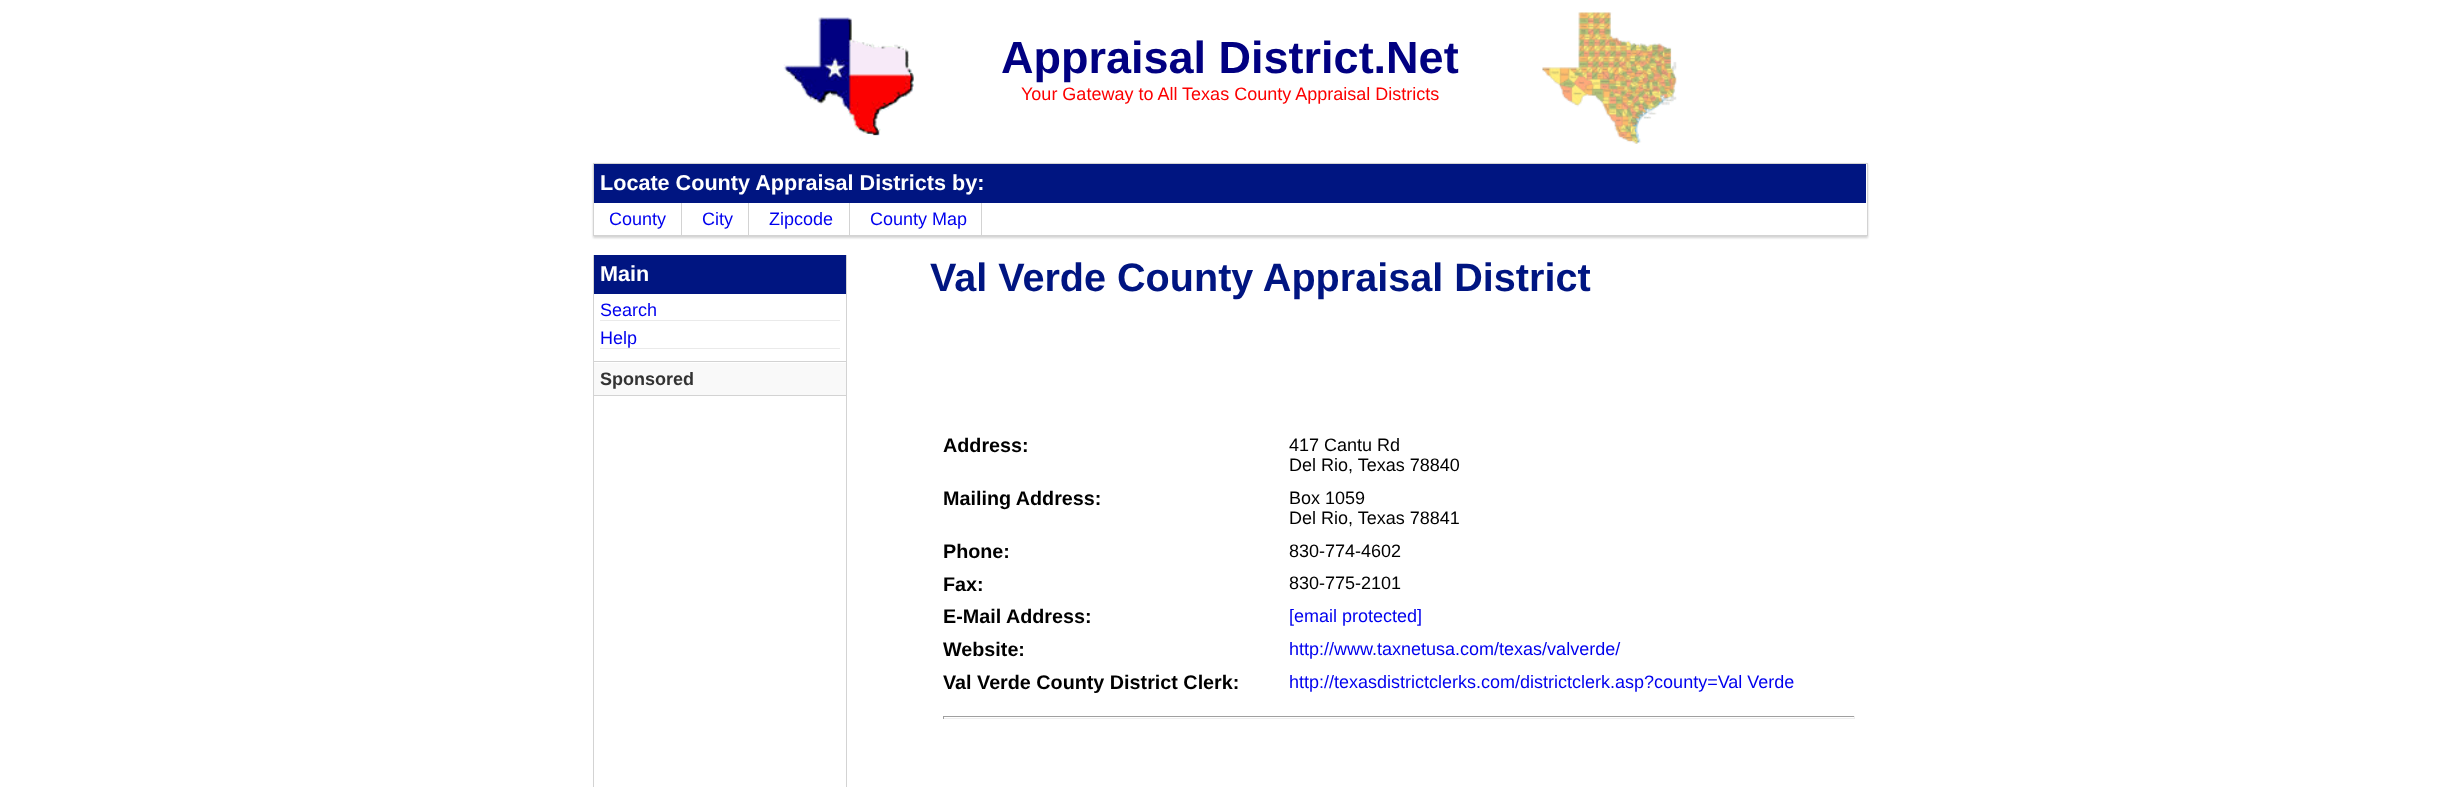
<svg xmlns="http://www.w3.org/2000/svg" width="2460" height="787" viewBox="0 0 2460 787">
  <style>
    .t1 { font: bold 45px Liberation Sans; fill: #010081; }
    .t2 { font: 18px Liberation Sans; fill: #fc0101; }
    .t3 { font: bold 21.6px Liberation Sans; fill: #fff; }
    .t4 { font: 18px Liberation Sans; fill: #00e; }
    .t5 { font: bold 18px Liberation Sans; fill: #333; }
    .t6 { font: bold 39.6px Liberation Sans; fill: #001581; }
    .t7 { font: bold 19.75px Liberation Sans; fill: #000; }
    .t8 { font: 18px Liberation Sans; fill: #000; }
  </style>
  <rect width="100%" height="100%" fill="#fff"/>
  <image x="783" y="17" width="131" height="119" href="images/1.png"/>
  <text x="1001" y="73" class="t1">Appraisal District.Net</text>
  <text x="1021" y="100" class="t2">Your Gateway to All Texas County Appraisal Districts</text>
  <image x="1542" y="12" width="135" height="132" href="images/2.png"/>
  <rect x="593" y="164" width="1275" height="74" fill="#d3d3d3" filter="blur(1px)"/>
  <rect x="593.5" y="163.5" width="1274" height="72" fill="#fff" stroke="#d3d3d3"/>
  <rect x="594" y="164" width="1272" height="39" fill="#001581"/>
  <text x="600" y="190" class="t3">Locate County Appraisal Districts by:</text>
  <text x="609" y="225" class="t4">County</text>
  <rect x="681" y="203" width="1" height="32" fill="#d3d3d3"/>
  <text x="702" y="225" class="t4">City</text>
  <rect x="748" y="203" width="1" height="32" fill="#d3d3d3"/>
  <text x="769" y="225" class="t4">Zipcode</text>
  <rect x="849" y="203" width="1" height="32" fill="#d3d3d3"/>
  <text x="870" y="225" class="t4">County Map</text>
  <rect x="981" y="203" width="1" height="32" fill="#d3d3d3"/>
  <rect x="846" y="255" width="1" height="532" fill="#d3d3d3"/>
  <rect x="593" y="255" width="1" height="532" fill="#d3d3d3"/>
  <rect x="594" y="255" width="252" height="39" fill="#001581"/>
  <text x="600" y="281" class="t3">Main</text>
  <rect x="600" y="320" width="240" height="1" fill="#eaeaea"/>
  <text x="600" y="316" class="t4">Search</text>
  <rect x="600" y="348" width="240" height="1" fill="#eaeaea"/>
  <text x="600" y="344" class="t4">Help</text>
  <rect x="594" y="361" width="252" height="1" fill="#d3d3d3"/>
  <rect x="594" y="363" width="252" height="32" fill="#f9f9f9"/>
  <rect x="594" y="395" width="252" height="1" fill="#d3d3d3"/>
  <text x="600" y="385" class="t5">Sponsored</text>
  <text x="930" y="291" class="t6">Val Verde County Appraisal District</text>
  <text x="943" y="452" class="t7">Address:</text>
  <text x="1289" y="451" class="t8">417 Cantu Rd</text>
  <text x="1289" y="471" class="t8">Del Rio, Texas 78840</text>
  <text x="943" y="505" class="t7">Mailing Address:</text>
  <text x="1289" y="504" class="t8">Box 1059</text>
  <text x="1289" y="524" class="t8">Del Rio, Texas 78841</text>
  <text x="943" y="558" class="t7">Phone:</text>
  <text x="1289" y="557" class="t8">830-774-4602</text>
  <text x="943" y="591" class="t7">Fax:</text>
  <text x="1289" y="589" class="t8">830-775-2101</text>
  <text x="943" y="623" class="t7">E-Mail Address:</text>
  <text x="1289" y="622" class="t4">[email protected]</text>
  <text x="943" y="656" class="t7">Website:</text>
  <text x="1289" y="655" class="t4">http://www.taxnetusa.com/texas/valverde/</text>
  <text x="943" y="689" class="t7">Val Verde County District Clerk:</text>
  <text x="1289" y="688" class="t4">http://texasdistrictclerks.com/districtclerk.asp?county=Val Verde</text>
  <rect x="943" y="716" width="912" height="1" fill="#9f9f9f"/>
  <rect x="1854" y="716" width="1" height="3" fill="#eee"/>
  <rect x="943" y="718" width="912" height="1" fill="#eee"/>
  <rect x="943" y="716" width="1" height="3" fill="#9f9f9f"/>
</svg>
